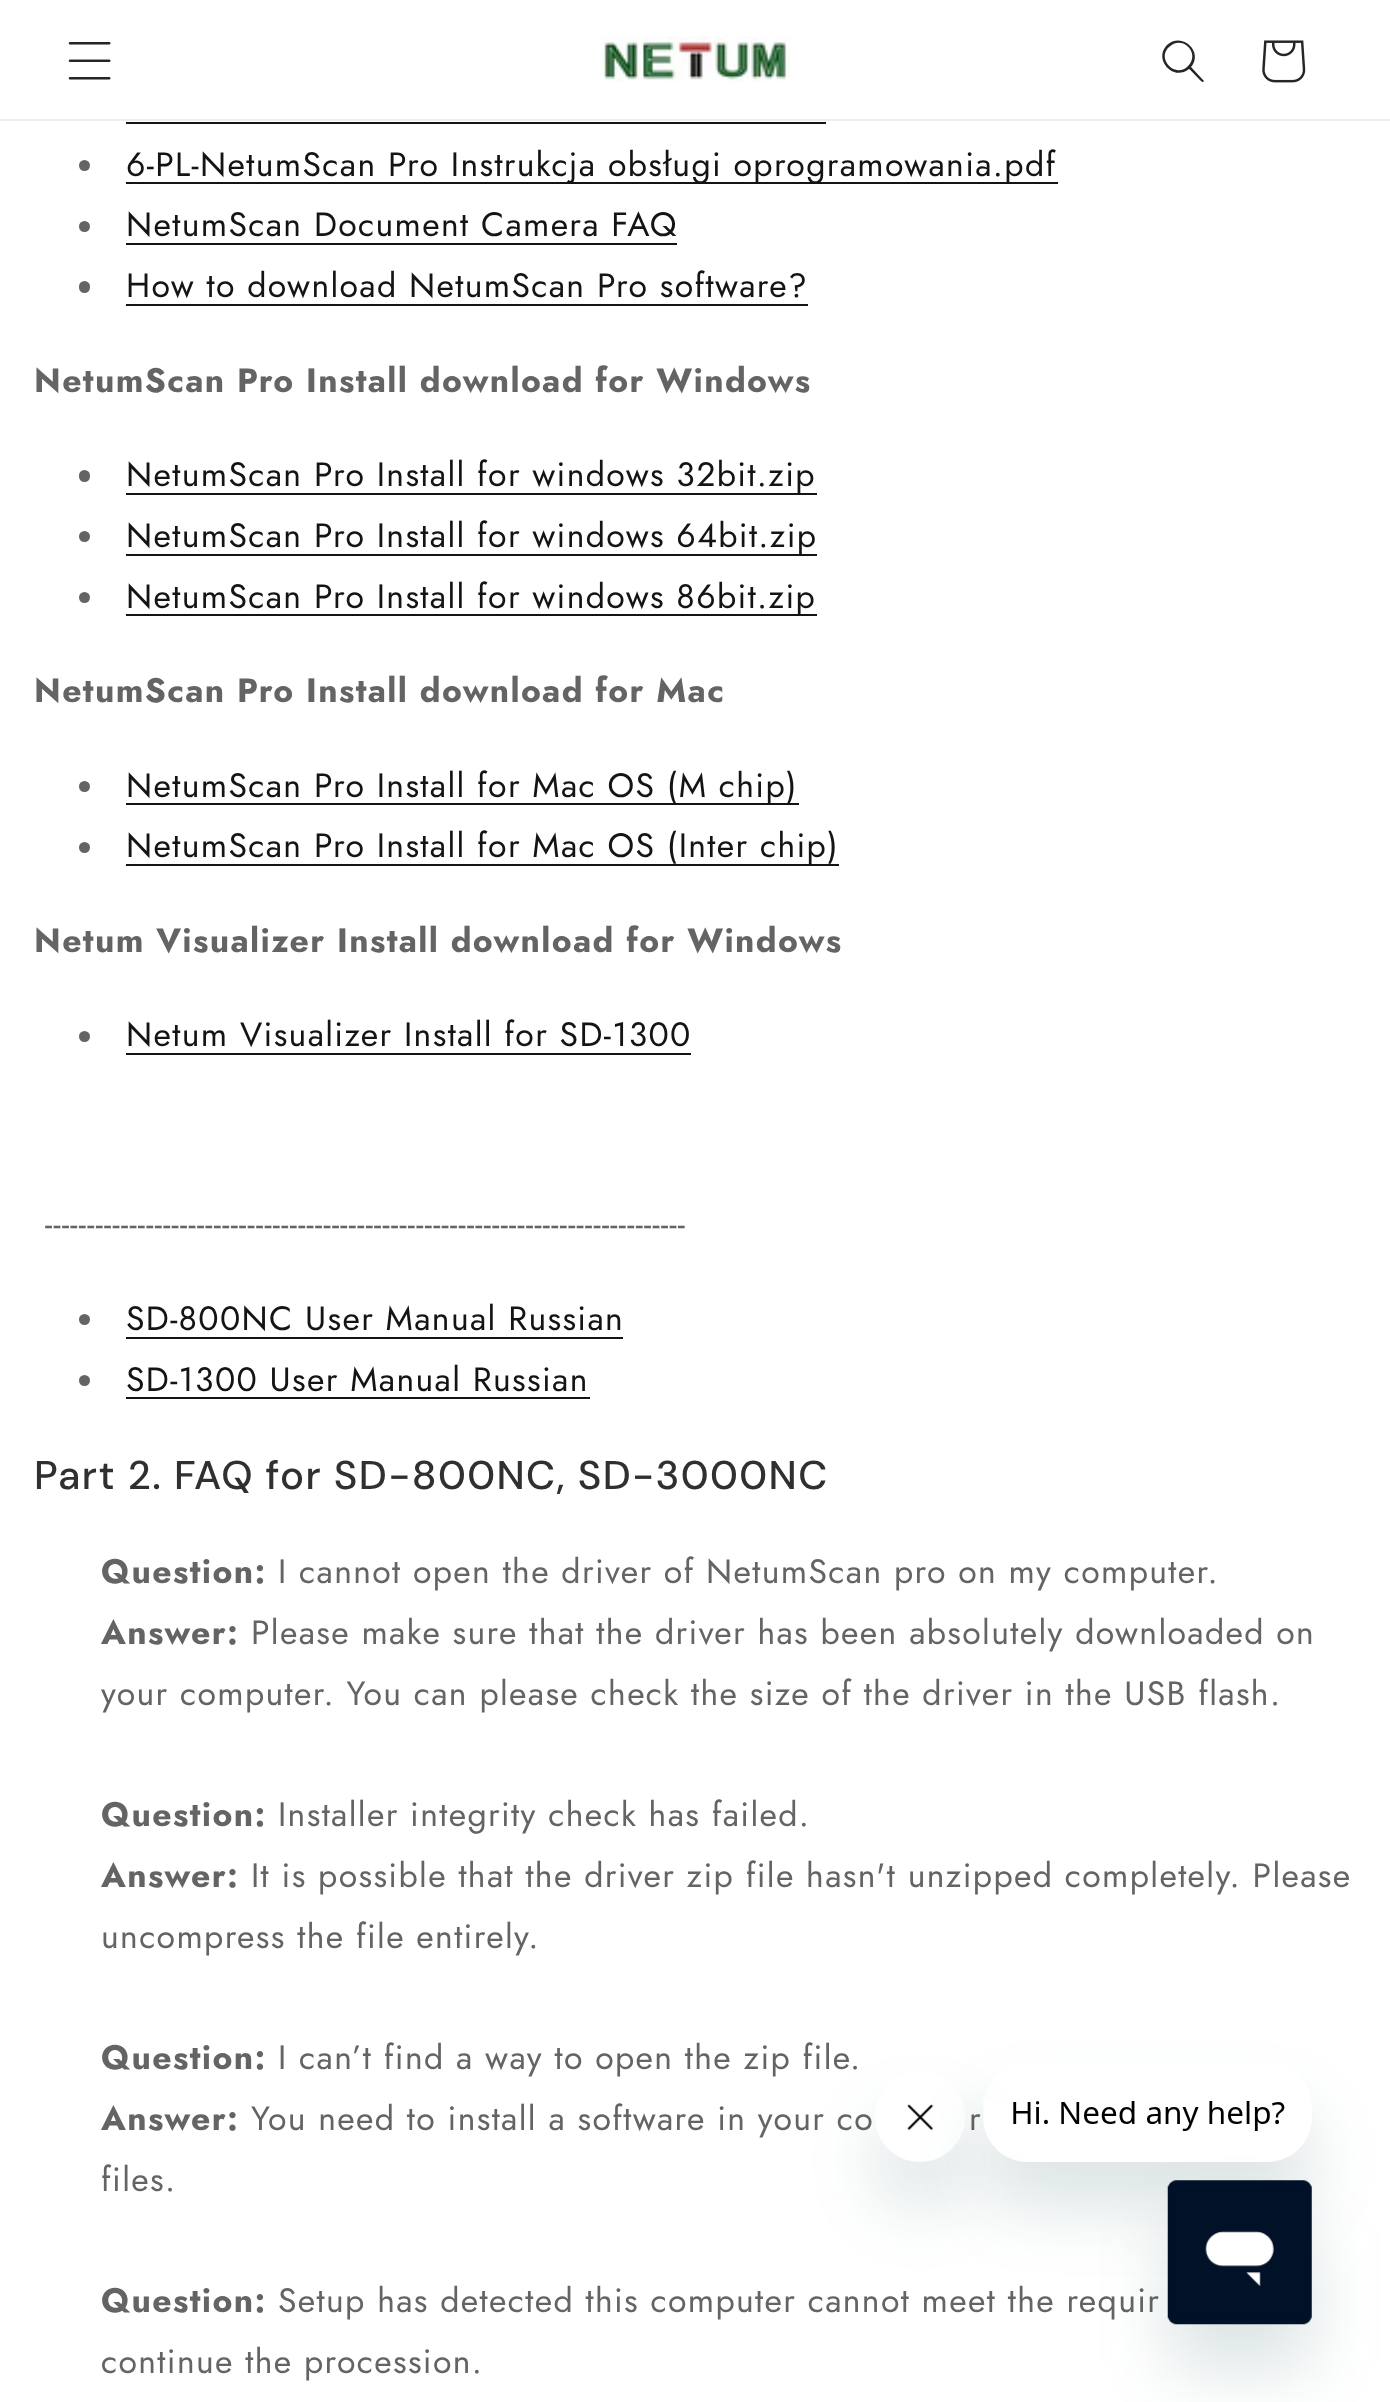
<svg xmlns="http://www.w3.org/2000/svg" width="1390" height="2402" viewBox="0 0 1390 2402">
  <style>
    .t1 { font: 33.75px Jost; letter-spacing: 1.35px; fill: #131414; }
    .t2 { font: bold 33.75px Jost; letter-spacing: 1.35px; fill: #646464; }
    .t3 { font: 33.75px Jost; letter-spacing: 1.35px; fill: #646464; }
    .t4 { font: 500 40.2px DM Sans; letter-spacing: 1.4px; fill: #303030; }
  </style>
  <defs>
    <clipPath id="clip1"><path d="M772 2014H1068V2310H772ZM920 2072C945 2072 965 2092 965 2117C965 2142 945 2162 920 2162C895 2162 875 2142 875 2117C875 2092 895 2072 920 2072Z" clip-rule="evenodd"/></clipPath>
    <clipPath id="clip2"><path d="M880 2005H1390V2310H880ZM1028 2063H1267C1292 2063 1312 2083 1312 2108V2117C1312 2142 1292 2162 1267 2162H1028C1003 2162 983 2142 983 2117V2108C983 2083 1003 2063 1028 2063Z" clip-rule="evenodd"/></clipPath>
  </defs>
  <rect width="100%" height="100%" fill="#fff"/>
  <rect x="0" y="119" width="1390" height="2" fill="#eee"/>
  <image x="68" y="42" width="43" height="38" href="images/1.png"/>
  <image x="600" y="36" width="191" height="46" href="images/2.png"/>
  <path d="M1188 66C1176 79 1156 59 1169 47C1182 34 1201 53 1188 66ZM1189 69C1173 82 1153 59 1167 45C1182 31 1204 52 1191 67L1204 81L1203 82C1202 83 1191 70 1189 69Z" fill="#262626" fill-rule="evenodd"/>
  <image x="1262" y="40" width="44" height="43" href="images/3.png"/>
  <rect x="126" y="122" width="700" height="2" fill="#131414"/>
  <circle cx="84.5" cy="165.5" r="5.5" fill="#646464"/>
  <rect x="126" y="182" width="932" height="2" fill="#131414"/>
  <text x="126" y="176" class="t1">6-PL-NetumScan Pro Instrukcja obsługi oprogramowania.pdf</text>
  <circle cx="84.5" cy="226.5" r="5.5" fill="#646464"/>
  <text x="126" y="236" class="t1">NetumScan Document Camera FAQ</text>
  <rect x="126" y="243" width="551" height="2" fill="#131414"/>
  <rect x="79" y="281" width="11" height="12" rx="5.5" fill="#646464"/>
  <text x="126" y="297" class="t1">How to download NetumScan Pro software?</text>
  <rect x="126" y="304" width="682" height="2" fill="#131414"/>
  <text x="34" y="392" class="t2">NetumScan Pro Install download for Windows</text>
  <rect x="79" y="470" width="11" height="12" rx="5.5" fill="#646464"/>
  <rect x="126" y="493" width="691" height="2" fill="#131414"/>
  <text x="126" y="486" class="t1">NetumScan Pro Install for windows 32bit.zip</text>
  <circle cx="84.5" cy="536.5" r="5.5" fill="#646464"/>
  <rect x="126" y="554" width="691" height="2" fill="#131414"/>
  <text x="126" y="547" class="t1">NetumScan Pro Install for windows 64bit.zip</text>
  <circle cx="84.5" cy="597.5" r="5.5" fill="#646464"/>
  <rect x="126" y="614" width="691" height="2" fill="#131414"/>
  <text x="126" y="608" class="t1">NetumScan Pro Install for windows 86bit.zip</text>
  <text x="34" y="702" class="t2">NetumScan Pro Install download for Mac</text>
  <circle cx="84.5" cy="786.5" r="5.5" fill="#646464"/>
  <rect x="126" y="803" width="673" height="2" fill="#131414"/>
  <text x="126" y="797" class="t1">NetumScan Pro Install for Mac OS (M chip)</text>
  <circle cx="84.5" cy="847.5" r="5.5" fill="#646464"/>
  <rect x="126" y="864" width="713" height="2" fill="#131414"/>
  <text x="126" y="857" class="t1">NetumScan Pro Install for Mac OS (Inter chip)</text>
  <text x="34" y="952" class="t2">Netum Visualizer Install download for Windows</text>
  <circle cx="84.5" cy="1036.5" r="5.5" fill="#646464"/>
  <text x="126" y="1046" class="t1">Netum Visualizer Install for SD-1300</text>
  <rect x="126" y="1053" width="565" height="2" fill="#131414"/>
  <text x="45" y="1235" class="t3">----------------------------------------------------------------------------</text>
  <circle cx="84.5" cy="1319.5" r="5.5" fill="#646464"/>
  <text x="126" y="1330" class="t1">SD-800NC User Manual Russian</text>
  <rect x="126" y="1337" width="497" height="2" fill="#131414"/>
  <circle cx="84.5" cy="1380.5" r="5.5" fill="#646464"/>
  <text x="126" y="1391" class="t1">SD-1300 User Manual Russian</text>
  <rect x="126" y="1397" width="464" height="2" fill="#131414"/>
  <text x="34" y="1489" class="t4">Part 2. FAQ for SD-800NC, SD-3000NC</text>
  <text x="101" y="1583" class="t2">Question:</text>
  <text x="278" y="1583" class="t3">I cannot open the driver of NetumScan pro on my computer.</text>
  <text x="101" y="1644" class="t2">Answer:</text>
  <text x="251" y="1644" class="t3">Please make sure that the driver has been absolutely downloaded on</text>
  <text x="101" y="1705" class="t3">your computer. You can please check the size of the driver in the USB flash.</text>
  <text x="101" y="1826" class="t2">Question:</text>
  <text x="278" y="1826" class="t3">Installer integrity check has failed.</text>
  <text x="101" y="1887" class="t2">Answer:</text>
  <text x="251" y="1887" class="t3">It is possible that the driver zip file hasn't unzipped completely. Please</text>
  <text x="101" y="1948" class="t3">uncompress the file entirely.</text>
  <text x="101" y="2069" class="t2">Question:</text>
  <text x="278" y="2069" class="t3">I can’t find a way to open the zip file.</text>
  <text x="101" y="2130" class="t2">Answer:</text>
  <text x="251" y="2130" class="t3">You need to install a software in your co</text>
  <text x="969" y="2130" class="t3">r</text>
  <text x="101" y="2191" class="t3">files.</text>
  <text x="101" y="2312" class="t2">Question:</text>
  <text x="278" y="2312" class="t3">Setup has detected this computer cannot meet the requir</text>
  <text x="101" y="2373" class="t3">continue the procession.</text>
  <g clip-path="url(#clip1)">
    <rect x="875" y="2117" width="90" height="90" rx="45" fill="#17494d26" filter="blur(34px)"/>
  </g>
  <image x="876" y="2104" width="90" height="34" href="images/5.png"/>
  <g clip-path="url(#clip2)">
    <rect x="983" y="2108" width="329" height="99" rx="45" fill="#17494d26" filter="blur(34px)"/>
  </g>
  <image x="984" y="2101" width="328" height="54" href="images/4.png"/>
  <rect x="1168" y="2225" width="144" height="144" rx="9" fill="#17494d26" filter="blur(34px)"/>
  <image x="1167" y="2180" width="145" height="145" href="images/6.png"/>
</svg>
